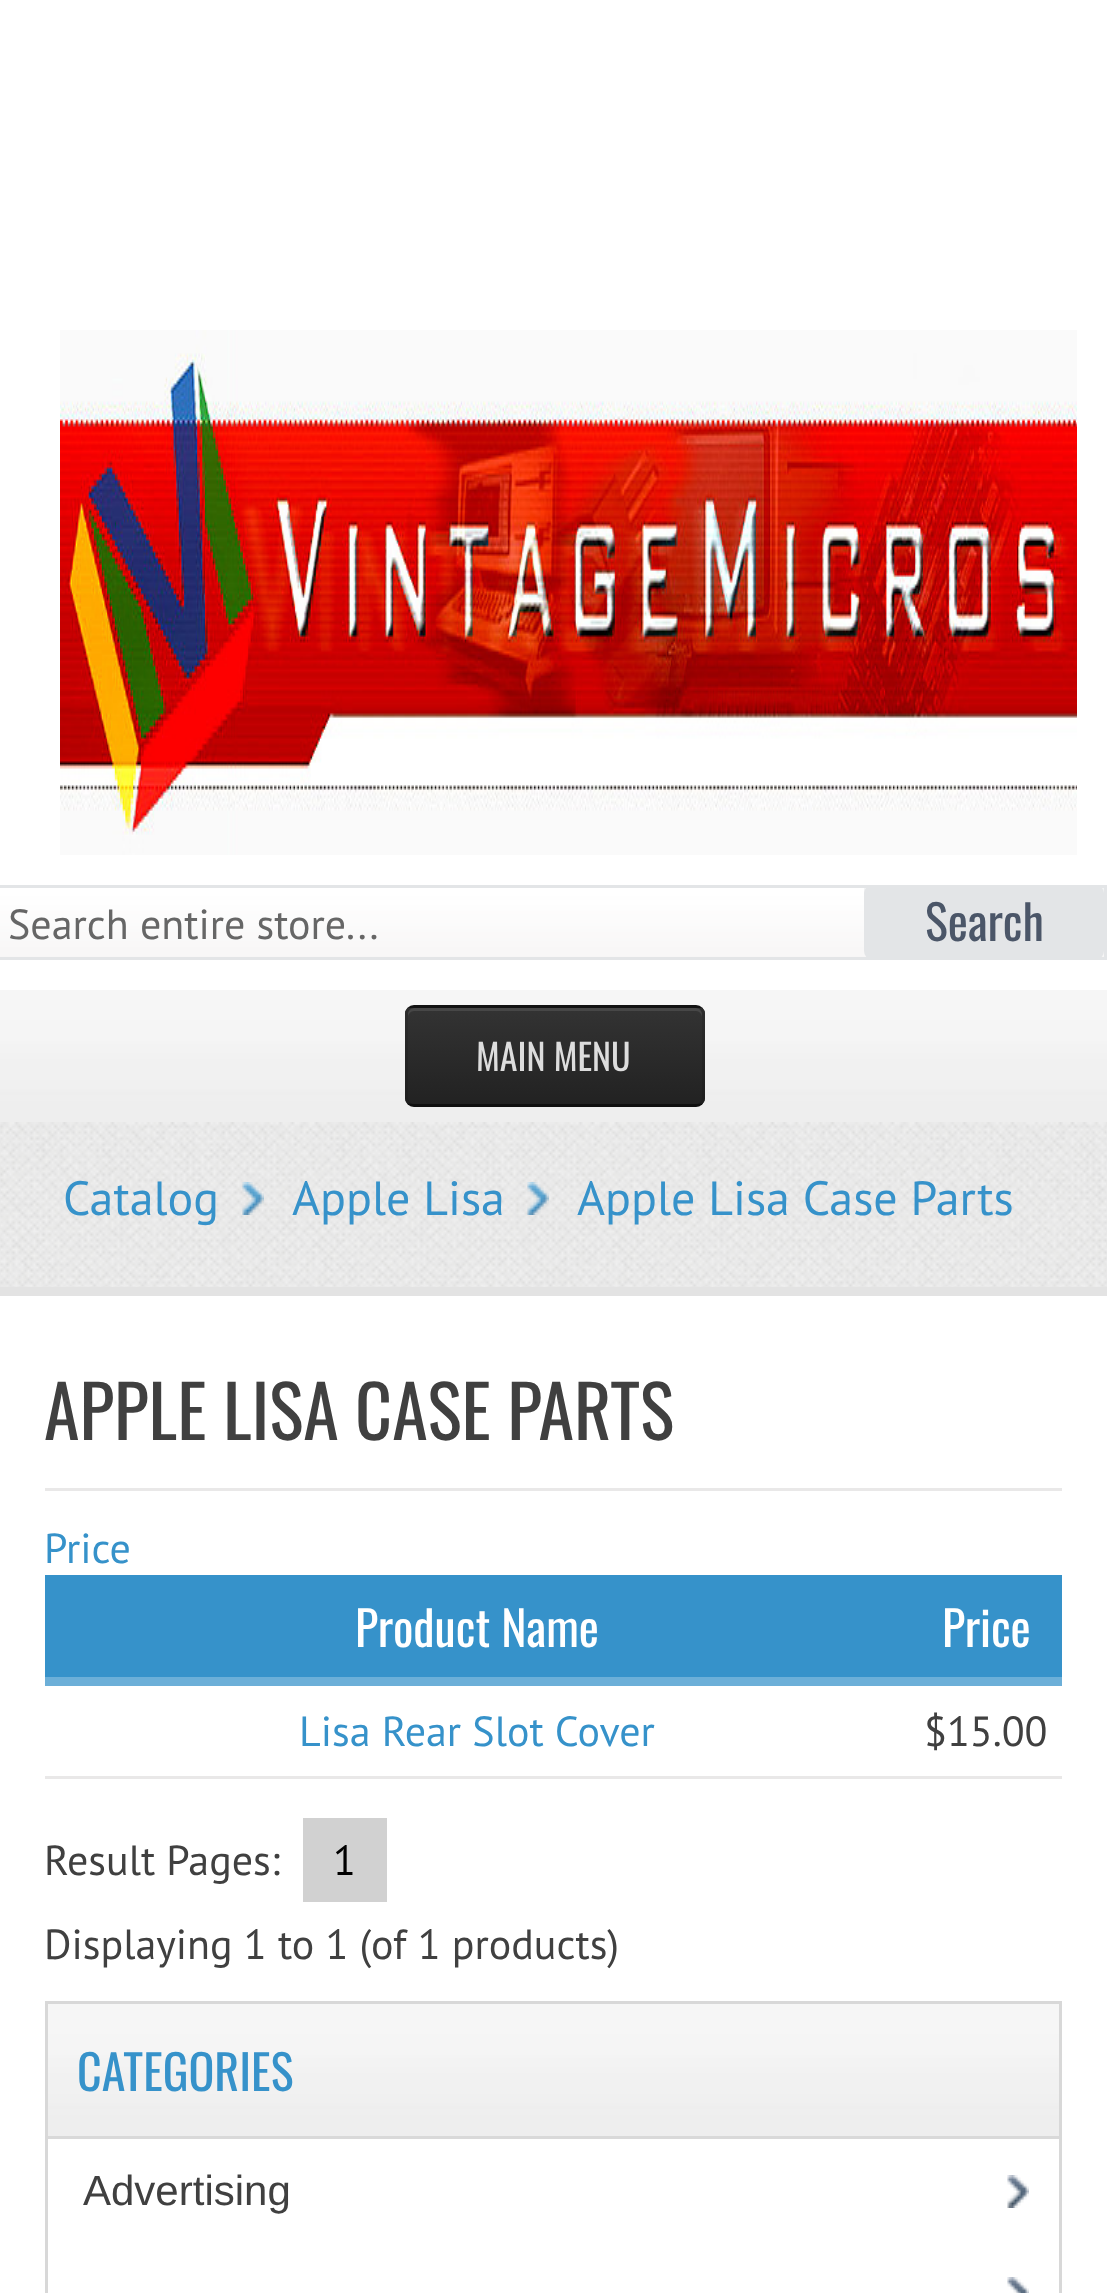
<svg xmlns="http://www.w3.org/2000/svg" width="1107" height="2293" viewBox="0 0 1107 2293">
  <style>
    .t1 { font: 42px PT Sans; fill: #666; }
    .t2 { font: 48px Oswald; fill: #4b5668; }
    .t3 { font: 36px Oswald; fill: #ddd; }
    .t4 { font: 48px PT Sans; fill: #3692ca; }
    .t5 { font: 72px Oswald; fill: #404040; }
    .t6 { font: 42px PT Sans; fill: #3692ca; }
    .t7 { font: 48px Oswald; fill: #fff; }
    .t8 { font: 42px PT Sans; fill: #404040; }
    .t9 { font: 42px PT Sans; fill: #000; }
    .t10 { font: 48px Oswald; fill: #3692ca; }
    .t11 { font: 42px Liberation Sans; fill: #404040; }
  </style>
  <defs>
    <clipPath id="clip1"><rect x="0" y="888" width="1104" height="69"/></clipPath>
    <clipPath id="clip2"><rect x="405" y="1005" width="300" height="102" rx="9"/></clipPath>
    <linearGradient id="g1" gradientUnits="userSpaceOnUse" x1="555" y1="1008" x2="555" y2="1104"><stop offset="0" stop-color="#333"/><stop offset="1" stop-color="#222"/></linearGradient>
  </defs>
  <rect width="100%" height="100%" fill="#fff"/>
  <image x="60" y="330" width="1017" height="525" href="images/1.png"/>
  <rect x="-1.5" y="886.5" width="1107" height="72" fill="none" stroke="#e3e5e7" stroke-width="3"/>
  <image x="0" y="888" width="1104" height="69" href="images/2.png"/>
  <text x="8" y="939" class="t1">Search entire store...</text>
  <g clip-path="url(#clip1)">
    <rect x="864" y="882" width="240" height="78" rx="9" fill="#e3e5e7"/>
    <path d="M873 885H1095C1100 885 1104 889 1104 894V891C1104 886 1100 882 1095 882H873C868 882 864 886 864 891V894C864 889 868 885 873 885Z" fill="#ffffff80"/>
  </g>
  <text x="925" y="941" class="t2">Search</text>
  <image x="0" y="990" width="1107" height="132" href="images/3.png"/>
  <rect x="405" y="1005" width="300" height="102" rx="9" fill="#151515"/>
  <g clip-path="url(#clip2)">
    <rect x="405" y="1008" width="300" height="96" fill="url(#g1)"/>
  </g>
  <path d="M414 1011H696C699 1011 702 1014 702 1017V1014C702 1011 699 1008 696 1008H414C411 1008 408 1011 408 1014V1017C408 1014 411 1011 414 1011Z" fill="#474747"/>
  <path d="M701.5 1103.5C700 1104.5 698 1105.5 696 1105.5H414C412 1105.5 410 1104.5 408.5 1103.5" fill="none" stroke="#00000040" stroke-width="3"/>
  <path d="M408.5 1103.5C407.5 1102 406.5 1100 406.5 1098V1014C406.5 1012 407.5 1010 408.5 1008.5C410 1007.5 412 1006.5 414 1006.5H696C698 1006.5 700 1007.5 701.5 1008.5C702.5 1010 703.5 1012 703.5 1014V1098C703.5 1100 702.5 1102 701.5 1103.5" fill="none" stroke="#0000001a" stroke-width="3"/>
  <text x="476" y="1071" class="t3">MAIN MENU</text>
  <image x="0" y="1122" width="1107" height="165" href="images/4.png"/>
  <rect x="0" y="1287" width="1107" height="9" fill="#e3e3e3"/>
  <image x="242" y="1182" width="22" height="33" href="images/5.png"/>
  <text x="63" y="1215" class="t4">Catalog</text>
  <image x="527" y="1182" width="22" height="33" href="images/6.png"/>
  <text x="292" y="1215" class="t4">Apple Lisa</text>
  <text x="577" y="1215" class="t4">Apple Lisa Case Parts</text>
  <rect x="45" y="1488" width="1017" height="3" fill="#e9e8e8"/>
  <text x="44" y="1440" class="t5">APPLE LISA CASE PARTS</text>
  <text x="44" y="1563" class="t6">Price</text>
  <rect x="45" y="1575" width="1017" height="102" fill="#3692ca"/>
  <rect x="45" y="1677" width="1017" height="9" fill="#6cafd8"/>
  <text x="355" y="1647" class="t7">Product Name</text>
  <text x="942" y="1647" class="t7">Price</text>
  <rect x="45" y="1776" width="1017" height="3" fill="#e9e8e8"/>
  <text x="299" y="1746" class="t6">Lisa Rear Slot Cover</text>
  <text x="924" y="1746" class="t8">$15.00</text>
  <text x="44" y="1875" class="t8">Result Pages:</text>
  <rect x="303" y="1818" width="84" height="84" fill="#d1d1d1"/>
  <text x="333" y="1875" class="t9">1</text>
  <text x="44" y="1959" class="t8">Displaying 1 to 1 (of 1 products)</text>
  <rect x="46.5" y="2002.5" width="1014" height="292" fill="none" stroke="#d8d8d8" stroke-width="3"/>
  <image x="48" y="2004" width="1011" height="132" href="images/7.png"/>
  <rect x="48" y="2136" width="1011" height="3" fill="#d9d9d9"/>
  <text x="77" y="2091" class="t10">CATEGORIES</text>
  <image x="1007" y="2175" width="22" height="33" href="images/8.png"/>
  <text x="83" y="2205" class="t11">Advertising</text>
  <image x="1007" y="2277" width="22" height="16" href="images/9.png"/>
</svg>
